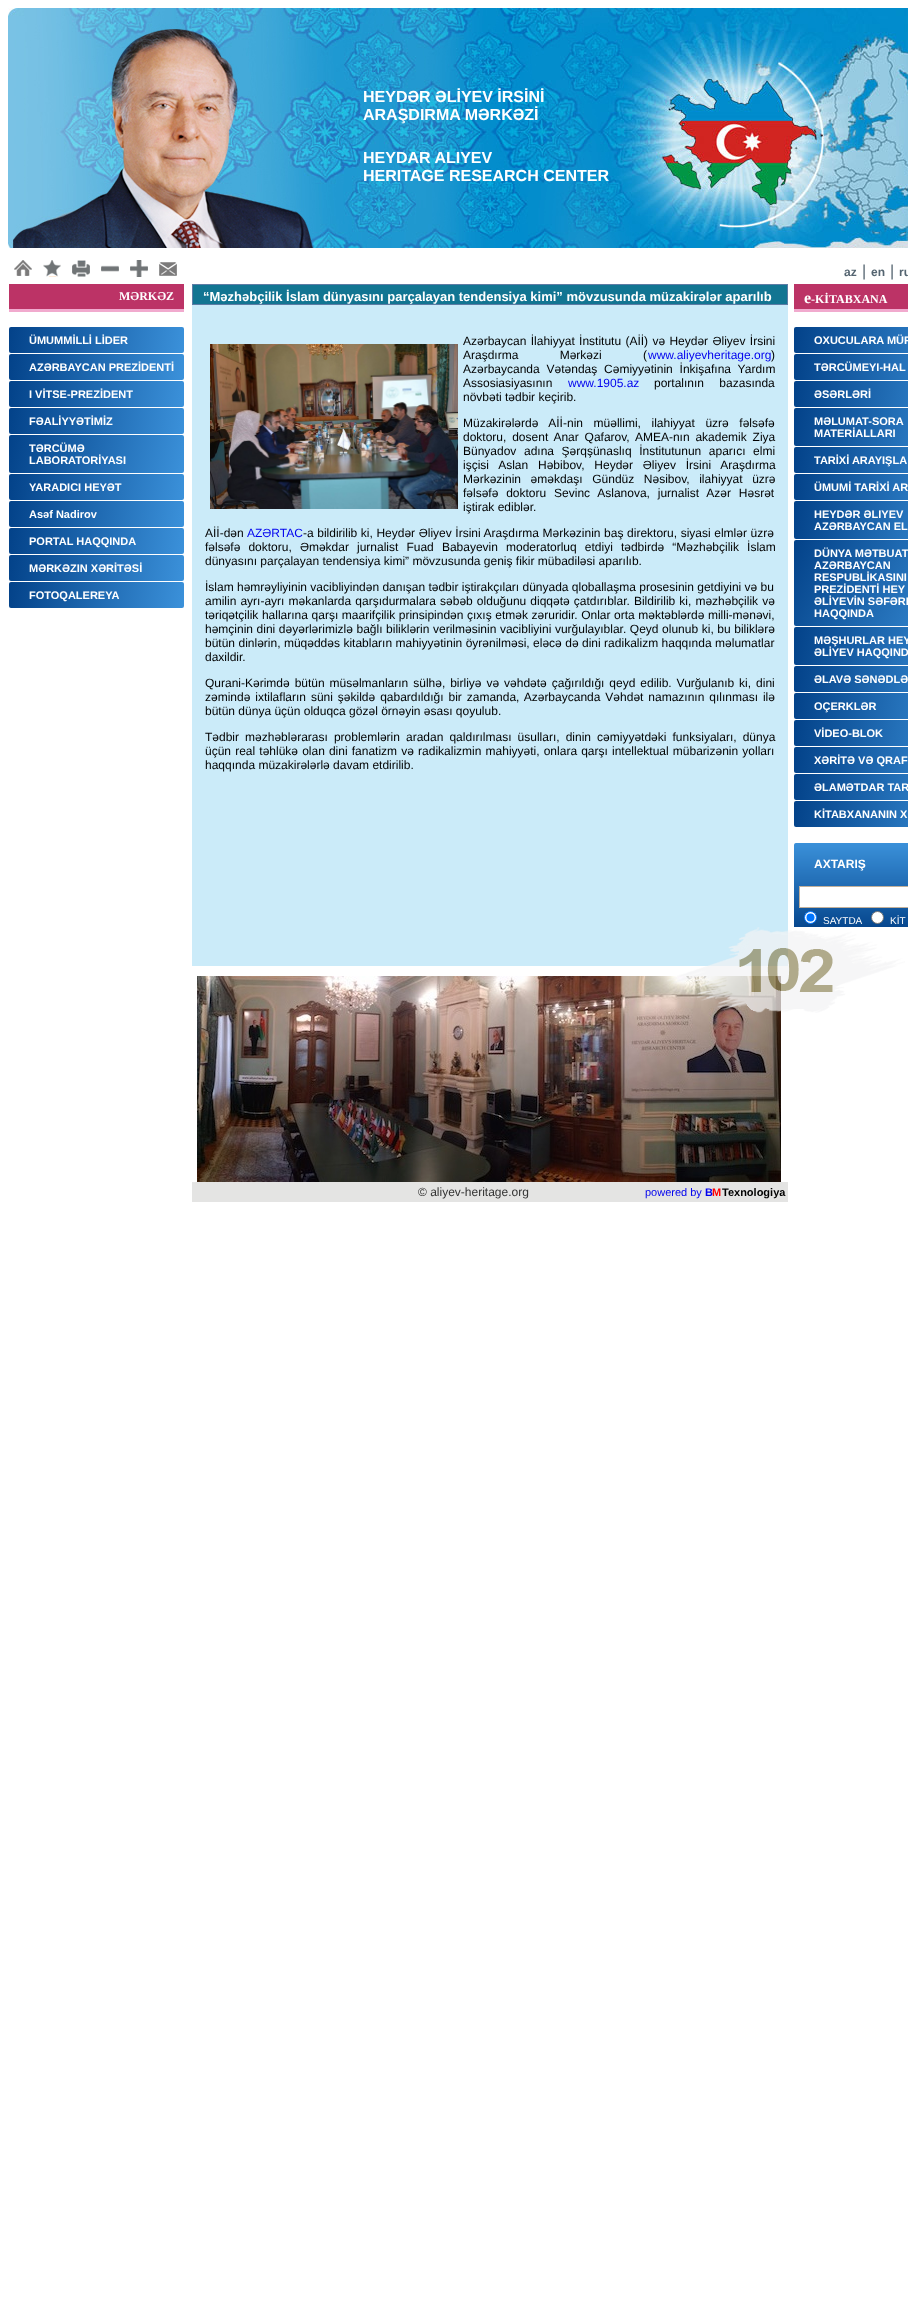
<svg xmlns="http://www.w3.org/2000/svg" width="908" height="2301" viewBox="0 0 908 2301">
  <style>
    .t1 { font: bold 16px Liberation Sans; fill: #fff; }
    .t2 { font: bold 12px Liberation Sans; fill: #556571; }
    .t3 { font: 16px Liberation Sans; fill: #556571; }
    .t4 { font: bold 12px Liberation Serif; fill: #fff; }
    .t5 { font: bold 11px Liberation Sans; fill: #fff; }
    .t6 { font: bold 13px Liberation Sans; fill: #fff; }
    .t7 { font: 12px Liberation Sans; fill: #000; }
    .t8 { font: 12px Liberation Sans; fill: #00e; }
    .t9 { font: 12px Liberation Sans; fill: #333; }
    .t10 { font: 11px Liberation Sans; fill: #00e; }
    .t11 { font: bold 11px Liberation Sans; fill: #00e; }
    .t12 { font: bold 11px Liberation Sans; fill: #f00; }
    .t13 { font: bold 11px Liberation Sans; fill: #000; }
    .t14 { font: bold 16px Liberation Serif; fill: #fff; }
    .t15 { font: bold 12px Liberation Sans; fill: #fff; }
    .t16 { font: 10px Liberation Sans; fill: #fff; }
  </style>
  <defs>
    <linearGradient id="g1" gradientUnits="userSpaceOnUse" x1="184" y1="353" x2="9" y2="327"><stop offset="0" stop-color="#3b91da"/><stop offset="1" stop-color="#034289"/></linearGradient>
    <linearGradient id="g2" gradientUnits="userSpaceOnUse" x1="184" y1="380" x2="9" y2="354"><stop offset="0" stop-color="#3b91da"/><stop offset="1" stop-color="#034289"/></linearGradient>
    <linearGradient id="g3" gradientUnits="userSpaceOnUse" x1="184" y1="407" x2="9" y2="381"><stop offset="0" stop-color="#3b91da"/><stop offset="1" stop-color="#034289"/></linearGradient>
    <linearGradient id="g4" gradientUnits="userSpaceOnUse" x1="184" y1="434" x2="9" y2="408"><stop offset="0" stop-color="#3b91da"/><stop offset="1" stop-color="#034289"/></linearGradient>
    <linearGradient id="g5" gradientUnits="userSpaceOnUse" x1="184" y1="473" x2="9" y2="435"><stop offset="0" stop-color="#3b91da"/><stop offset="1" stop-color="#034289"/></linearGradient>
    <linearGradient id="g6" gradientUnits="userSpaceOnUse" x1="184" y1="500" x2="9" y2="474"><stop offset="0" stop-color="#3b91da"/><stop offset="1" stop-color="#034289"/></linearGradient>
    <linearGradient id="g7" gradientUnits="userSpaceOnUse" x1="184" y1="527" x2="9" y2="501"><stop offset="0" stop-color="#3b91da"/><stop offset="1" stop-color="#034289"/></linearGradient>
    <linearGradient id="g8" gradientUnits="userSpaceOnUse" x1="184" y1="554" x2="9" y2="528"><stop offset="0" stop-color="#3b91da"/><stop offset="1" stop-color="#034289"/></linearGradient>
    <linearGradient id="g9" gradientUnits="userSpaceOnUse" x1="184" y1="581" x2="9" y2="555"><stop offset="0" stop-color="#3b91da"/><stop offset="1" stop-color="#034289"/></linearGradient>
    <linearGradient id="g10" gradientUnits="userSpaceOnUse" x1="184" y1="608" x2="9" y2="582"><stop offset="0" stop-color="#3b91da"/><stop offset="1" stop-color="#034289"/></linearGradient>
    <linearGradient id="g11" gradientUnits="userSpaceOnUse" x1="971" y1="353" x2="794" y2="327"><stop offset="0" stop-color="#3b91da"/><stop offset="1" stop-color="#034289"/></linearGradient>
    <linearGradient id="g12" gradientUnits="userSpaceOnUse" x1="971" y1="380" x2="794" y2="354"><stop offset="0" stop-color="#3b91da"/><stop offset="1" stop-color="#034289"/></linearGradient>
    <linearGradient id="g13" gradientUnits="userSpaceOnUse" x1="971" y1="407" x2="794" y2="381"><stop offset="0" stop-color="#3b91da"/><stop offset="1" stop-color="#034289"/></linearGradient>
    <linearGradient id="g14" gradientUnits="userSpaceOnUse" x1="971" y1="446" x2="794" y2="408"><stop offset="0" stop-color="#3b91da"/><stop offset="1" stop-color="#034289"/></linearGradient>
    <linearGradient id="g15" gradientUnits="userSpaceOnUse" x1="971" y1="473" x2="794" y2="447"><stop offset="0" stop-color="#3b91da"/><stop offset="1" stop-color="#034289"/></linearGradient>
    <linearGradient id="g16" gradientUnits="userSpaceOnUse" x1="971" y1="500" x2="794" y2="474"><stop offset="0" stop-color="#3b91da"/><stop offset="1" stop-color="#034289"/></linearGradient>
    <linearGradient id="g17" gradientUnits="userSpaceOnUse" x1="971" y1="539" x2="794" y2="501"><stop offset="0" stop-color="#3b91da"/><stop offset="1" stop-color="#034289"/></linearGradient>
    <linearGradient id="g18" gradientUnits="userSpaceOnUse" x1="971" y1="626" x2="794" y2="540"><stop offset="0" stop-color="#3b91da"/><stop offset="1" stop-color="#034289"/></linearGradient>
    <linearGradient id="g19" gradientUnits="userSpaceOnUse" x1="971" y1="665" x2="794" y2="627"><stop offset="0" stop-color="#3b91da"/><stop offset="1" stop-color="#034289"/></linearGradient>
    <linearGradient id="g20" gradientUnits="userSpaceOnUse" x1="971" y1="692" x2="794" y2="666"><stop offset="0" stop-color="#3b91da"/><stop offset="1" stop-color="#034289"/></linearGradient>
    <linearGradient id="g21" gradientUnits="userSpaceOnUse" x1="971" y1="719" x2="794" y2="693"><stop offset="0" stop-color="#3b91da"/><stop offset="1" stop-color="#034289"/></linearGradient>
    <linearGradient id="g22" gradientUnits="userSpaceOnUse" x1="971" y1="746" x2="794" y2="720"><stop offset="0" stop-color="#3b91da"/><stop offset="1" stop-color="#034289"/></linearGradient>
    <linearGradient id="g23" gradientUnits="userSpaceOnUse" x1="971" y1="773" x2="794" y2="747"><stop offset="0" stop-color="#3b91da"/><stop offset="1" stop-color="#034289"/></linearGradient>
    <linearGradient id="g24" gradientUnits="userSpaceOnUse" x1="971" y1="800" x2="794" y2="774"><stop offset="0" stop-color="#3b91da"/><stop offset="1" stop-color="#034289"/></linearGradient>
    <linearGradient id="g25" gradientUnits="userSpaceOnUse" x1="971" y1="827" x2="794" y2="801"><stop offset="0" stop-color="#3b91da"/><stop offset="1" stop-color="#034289"/></linearGradient>
  </defs>
  <rect width="100%" height="100%" fill="#fff"/>
  <image x="8" y="8" width="900" height="240" href="images/1.png"/>
  <text x="363" y="102" class="t1">HEYDƏR ƏLİYEV İRSİNİ</text>
  <text x="363" y="120" class="t1">ARAŞDΙRMA MƏRKƏZİ</text>
  <text x="363" y="163" class="t1">HEYDAR ALIYEV</text>
  <text x="363" y="181" class="t1">HERITAGE RESEARCH CENTER</text>
  <image x="14" y="260" width="18" height="16" href="images/2.png"/>
  <image x="43" y="260" width="18" height="17" href="images/3.png"/>
  <image x="72" y="260" width="18" height="17" href="images/4.png"/>
  <image x="101" y="265" width="18" height="7" href="images/5.png"/>
  <image x="130" y="260" width="18" height="17" href="images/6.png"/>
  <image x="159" y="262" width="18" height="14" href="images/7.png"/>
  <text x="844" y="276" class="t2">az</text>
  <text x="862" y="276" class="t3">|</text>
  <text x="871" y="276" class="t2">en</text>
  <text x="890" y="276" class="t3">|</text>
  <text x="899" y="276" class="t2">ru</text>
  <rect x="9" y="284" width="175" height="25" fill="#bc3366"/>
  <rect x="9" y="309" width="175" height="3" fill="#f1aace"/>
  <text x="119" y="300" class="t4">MƏRKƏZ</text>
  <rect x="9" y="327" width="175" height="26" rx="2" fill="url(#g1)"/>
  <text x="29" y="344" class="t5">ÜMUMMİLLİ LİDER</text>
  <rect x="9" y="354" width="175" height="26" rx="2" fill="url(#g2)"/>
  <text x="29" y="371" class="t5">AZƏRBAYCAN PREZİDENTİ</text>
  <rect x="9" y="381" width="175" height="26" rx="2" fill="url(#g3)"/>
  <text x="29" y="398" class="t5">I VİTSE-PREZİDENT</text>
  <rect x="9" y="408" width="175" height="26" rx="2" fill="url(#g4)"/>
  <text x="29" y="425" class="t5">FƏALİYYƏTİMİZ</text>
  <rect x="9" y="435" width="175" height="38" rx="2" fill="url(#g5)"/>
  <text x="29" y="452" class="t5">TƏRCÜMƏ</text>
  <text x="29" y="464" class="t5">LABORATORİYASI</text>
  <rect x="9" y="474" width="175" height="26" rx="2" fill="url(#g6)"/>
  <text x="29" y="491" class="t5">YARADICI HEYƏT</text>
  <rect x="9" y="501" width="175" height="26" rx="2" fill="url(#g7)"/>
  <text x="29" y="518" class="t5">Asəf Nadirov</text>
  <rect x="9" y="528" width="175" height="26" rx="2" fill="url(#g8)"/>
  <text x="29" y="545" class="t5">PORTAL HAQQINDA</text>
  <rect x="9" y="555" width="175" height="26" rx="2" fill="url(#g9)"/>
  <text x="29" y="572" class="t5">MƏRKƏZIN XƏRİTƏSİ</text>
  <rect x="9" y="582" width="175" height="26" rx="2" fill="url(#g10)"/>
  <text x="29" y="599" class="t5">FOTOQALEREYA</text>
  <rect x="192" y="305" width="596" height="661" fill="#cbebf9"/>
  <rect x="192.5" y="284.5" width="595" height="20" fill="#127592" stroke="#5e7ca5"/>
  <text x="203" y="301" class="t6">“Məzhəbçilik İslam dünyasını parçalayan tendensiya kimi” mövzusunda müzakirələr aparılıb</text>
  <text x="463" y="345" word-spacing="1" class="t7">Azərbaycan İlahiyyat İnstitutu (Aİİ) və Heydər Əliyev İrsini</text>
  <image x="210" y="344" width="248" height="165" href="images/8.png"/>
  <text x="463" y="359" word-spacing="38" class="t7">Araşdırma Mərkəzi (</text>
  <text x="648" y="359" class="t8">www.aliyevheritage.org</text>
  <text x="771" y="359" class="t7">)</text>
  <text x="463" y="373" word-spacing="3.5" class="t7">Azərbaycanda Vətəndaş Cəmiyyətinin İnkişafına Yardım</text>
  <text x="463" y="387" class="t7">Assosiasiyasının</text>
  <text x="568" y="387" class="t8">www.1905.az</text>
  <text x="654" y="387" word-spacing="12" class="t7">portalının bazasında</text>
  <text x="463" y="401" class="t7">növbəti tədbir keçirib.</text>
  <text x="463" y="427" word-spacing="7.25" class="t7">Müzakirələrdə Aİİ-nin müəllimi, ilahiyyat üzrə fəlsəfə</text>
  <text x="463" y="441" word-spacing="2.5" class="t7">doktoru, dosent Anar Qafarov, AMEA-nın akademik Ziya</text>
  <text x="463" y="455" word-spacing="4.25" class="t7">Bünyadov adına Şərqşünaslıq İnstitutunun aparıcı elmi</text>
  <text x="463" y="469" word-spacing="6.5" class="t7">işçisi Aslan Həbibov, Heydər Əliyev İrsini Araşdırma</text>
  <text x="463" y="483" word-spacing="6.25" class="t7">Mərkəzinin əməkdaşı Gündüz Nəsibov, ilahiyyat üzrə</text>
  <text x="463" y="497" word-spacing="4.5" class="t7">fəlsəfə doktoru Sevinc Aslanova, jurnalist Azər Həsrət</text>
  <text x="463" y="511" class="t7">iştirak ediblər.</text>
  <text x="205" y="537" class="t7">Aİİ-dən</text>
  <text x="247" y="537" class="t8">AZƏRTAC</text>
  <text x="303" y="537" word-spacing="0.25" class="t7">-a bildirilib ki, Heydər Əliyev İrsini Araşdırma Mərkəzinin baş direktoru, siyasi elmlər üzrə</text>
  <text x="205" y="551" word-spacing="4.75" class="t7">fəlsəfə doktoru, Əməkdar jurnalist Fuad Babayevin moderatorluq etdiyi tədbirdə “Məzhəbçilik İslam</text>
  <text x="205" y="565" class="t7">dünyasını parçalayan tendensiya kimi” mövzusunda geniş fikir mübadiləsi aparılıb.</text>
  <text x="205" y="591" class="t7">İslam həmrəyliyinin vacibliyindən danışan tədbir iştirakçıları dünyada qloballaşma prosesinin getdiyini və bu</text>
  <text x="205" y="605" word-spacing="0.75" class="t7">amilin ayrı-ayrı məkanlarda qarşıdurmalara səbəb olduğunu diqqətə çatdırıblar. Bildirilib ki, məzhəbçilik və</text>
  <text x="205" y="619" word-spacing="0.25" class="t7">təriqətçilik hallarına qarşı maarifçilik prinsipindən çıxış etmək zəruridir. Onlar orta məktəblərdə milli-mənəvi,</text>
  <text x="205" y="633" word-spacing="0.25" class="t7">həmçinin dini dəyərlərimizlə bağlı biliklərin verilməsinin vacibliyini vurğulayıblar. Qeyd olunub ki, bu biliklərə</text>
  <text x="205" y="647" word-spacing="0.1" class="t7">bütün dinlərin, müqəddəs kitabların mahiyyətinin öyrənilməsi, eləcə də dini radikalizm haqqında məlumatlar</text>
  <text x="205" y="661" class="t7">daxildir.</text>
  <text x="205" y="687" word-spacing="1.6" class="t7">Qurani-Kərimdə bütün müsəlmanların sülhə, birliyə və vəhdətə çağırıldığı qeyd edilib. Vurğulanıb ki, dini</text>
  <text x="205" y="701" word-spacing="1.6" class="t7">zəmində ixtilafların süni şəkildə qabardıldığı bir zamanda, Azərbaycanda Vəhdət namazının qılınması ilə</text>
  <text x="205" y="715" class="t7">bütün dünya üçün olduqca gözəl örnəyin əsası qoyulub.</text>
  <text x="205" y="741" word-spacing="2.75" class="t7">Tədbir məzhəblərarası problemlərin aradan qaldırılması üsulları, dinin cəmiyyətdəki funksiyaları, dünya</text>
  <text x="205" y="755" word-spacing="0.8" class="t7">üçün real təhlükə olan dini fanatizm və radikalizmin mahiyyəti, onlara qarşı intellektual mübarizənin yolları</text>
  <text x="205" y="769" class="t7">haqqında müzakirələrlə davam etdirilib.</text>
  <image x="197" y="976" width="584" height="206" href="images/9.png"/>
  <rect x="192" y="1182" width="596" height="20" fill="#e4e4e3"/>
  <text x="418" y="1196" class="t9">© aliyev-heritage.org</text>
  <text x="645" y="1196" class="t10">powered by</text>
  <text x="705" y="1196" class="t11">B</text>
  <text x="712" y="1196" class="t12">M</text>
  <text x="722" y="1196" class="t13">Texnologiya</text>
  <rect x="794" y="284" width="114" height="25" fill="#bc3366"/>
  <rect x="794" y="309" width="114" height="3" fill="#f1aace"/>
  <text x="804" y="303" class="t14">e</text>
  <text x="811" y="303" class="t4">-KİTABXANA</text>
  <rect x="794" y="327" width="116" height="26" rx="2" fill="url(#g11)"/>
  <text x="814" y="344" class="t5">OXUCULARA MÜR</text>
  <rect x="794" y="354" width="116" height="26" rx="2" fill="url(#g12)"/>
  <text x="814" y="371" class="t5">TƏRCÜMEYI-HAL</text>
  <rect x="794" y="381" width="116" height="26" rx="2" fill="url(#g13)"/>
  <text x="814" y="398" class="t5">ƏSƏRLƏRİ</text>
  <rect x="794" y="408" width="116" height="38" rx="2" fill="url(#g14)"/>
  <text x="814" y="425" class="t5">MƏLUMAT-SORA</text>
  <text x="814" y="437" class="t5">MATERİALLARI</text>
  <rect x="794" y="447" width="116" height="26" rx="2" fill="url(#g15)"/>
  <text x="814" y="464" class="t5">TARİXİ ARAYIŞLA</text>
  <rect x="794" y="474" width="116" height="26" rx="2" fill="url(#g16)"/>
  <text x="814" y="491" class="t5">ÜMUMİ TARİXİ AR</text>
  <rect x="794" y="501" width="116" height="38" rx="2" fill="url(#g17)"/>
  <text x="814" y="518" class="t5">HEYDƏR ƏLIYEV</text>
  <text x="814" y="530" class="t5">AZƏRBAYCAN EL</text>
  <rect x="794" y="540" width="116" height="86" rx="2" fill="url(#g18)"/>
  <text x="814" y="557" class="t5">DÜNYA MƏTBUAT</text>
  <text x="814" y="569" class="t5">AZƏRBAYCAN</text>
  <text x="814" y="581" class="t5">RESPUBLİKASINI</text>
  <text x="814" y="593" class="t5">PREZİDENTİ HEY</text>
  <text x="814" y="605" class="t5">ƏLİYEVİN SƏFƏRL</text>
  <text x="814" y="617" class="t5">HAQQINDA</text>
  <rect x="794" y="627" width="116" height="38" rx="2" fill="url(#g19)"/>
  <text x="814" y="644" class="t5">MƏŞHURLAR HEY</text>
  <text x="814" y="656" class="t5">ƏLİYEV HAQQIND</text>
  <rect x="794" y="666" width="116" height="26" rx="2" fill="url(#g20)"/>
  <text x="814" y="683" class="t5">ƏLAVƏ SƏNƏDLƏ</text>
  <rect x="794" y="693" width="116" height="26" rx="2" fill="url(#g21)"/>
  <text x="814" y="710" class="t5">OÇERKLƏR</text>
  <rect x="794" y="720" width="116" height="26" rx="2" fill="url(#g22)"/>
  <text x="814" y="737" class="t5">VİDEO-BLOK</text>
  <rect x="794" y="747" width="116" height="26" rx="2" fill="url(#g23)"/>
  <text x="814" y="764" class="t5">XƏRİTƏ VƏ QRAF</text>
  <rect x="794" y="774" width="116" height="26" rx="2" fill="url(#g24)"/>
  <text x="814" y="791" class="t5">ƏLAMƏTDAR TAR</text>
  <rect x="794" y="801" width="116" height="26" rx="2" fill="url(#g25)"/>
  <text x="814" y="818" class="t5">KİTABXANANIN X</text>
  <image x="794" y="843" width="114" height="84" href="images/10.png"/>
  <text x="814" y="868" class="t15">AXTARΙŞ</text>
  <rect x="799.5" y="886.5" width="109" height="21" fill="#fff" stroke="#c1af99"/>
  <circle cx="810.5" cy="917.5" r="6" fill="#fff" stroke="#0075ff"/>
  <circle cx="810.5" cy="917.5" r="4" fill="#0075ff"/>
  <text x="823" y="924" class="t16">SAYTDA</text>
  <circle cx="877.5" cy="917.5" r="6" fill="#fff" stroke="#767676"/>
  <text x="890" y="924" class="t16">KİT</text>
  <image x="667" y="927" width="238" height="86" href="images/11.png"/>
</svg>
